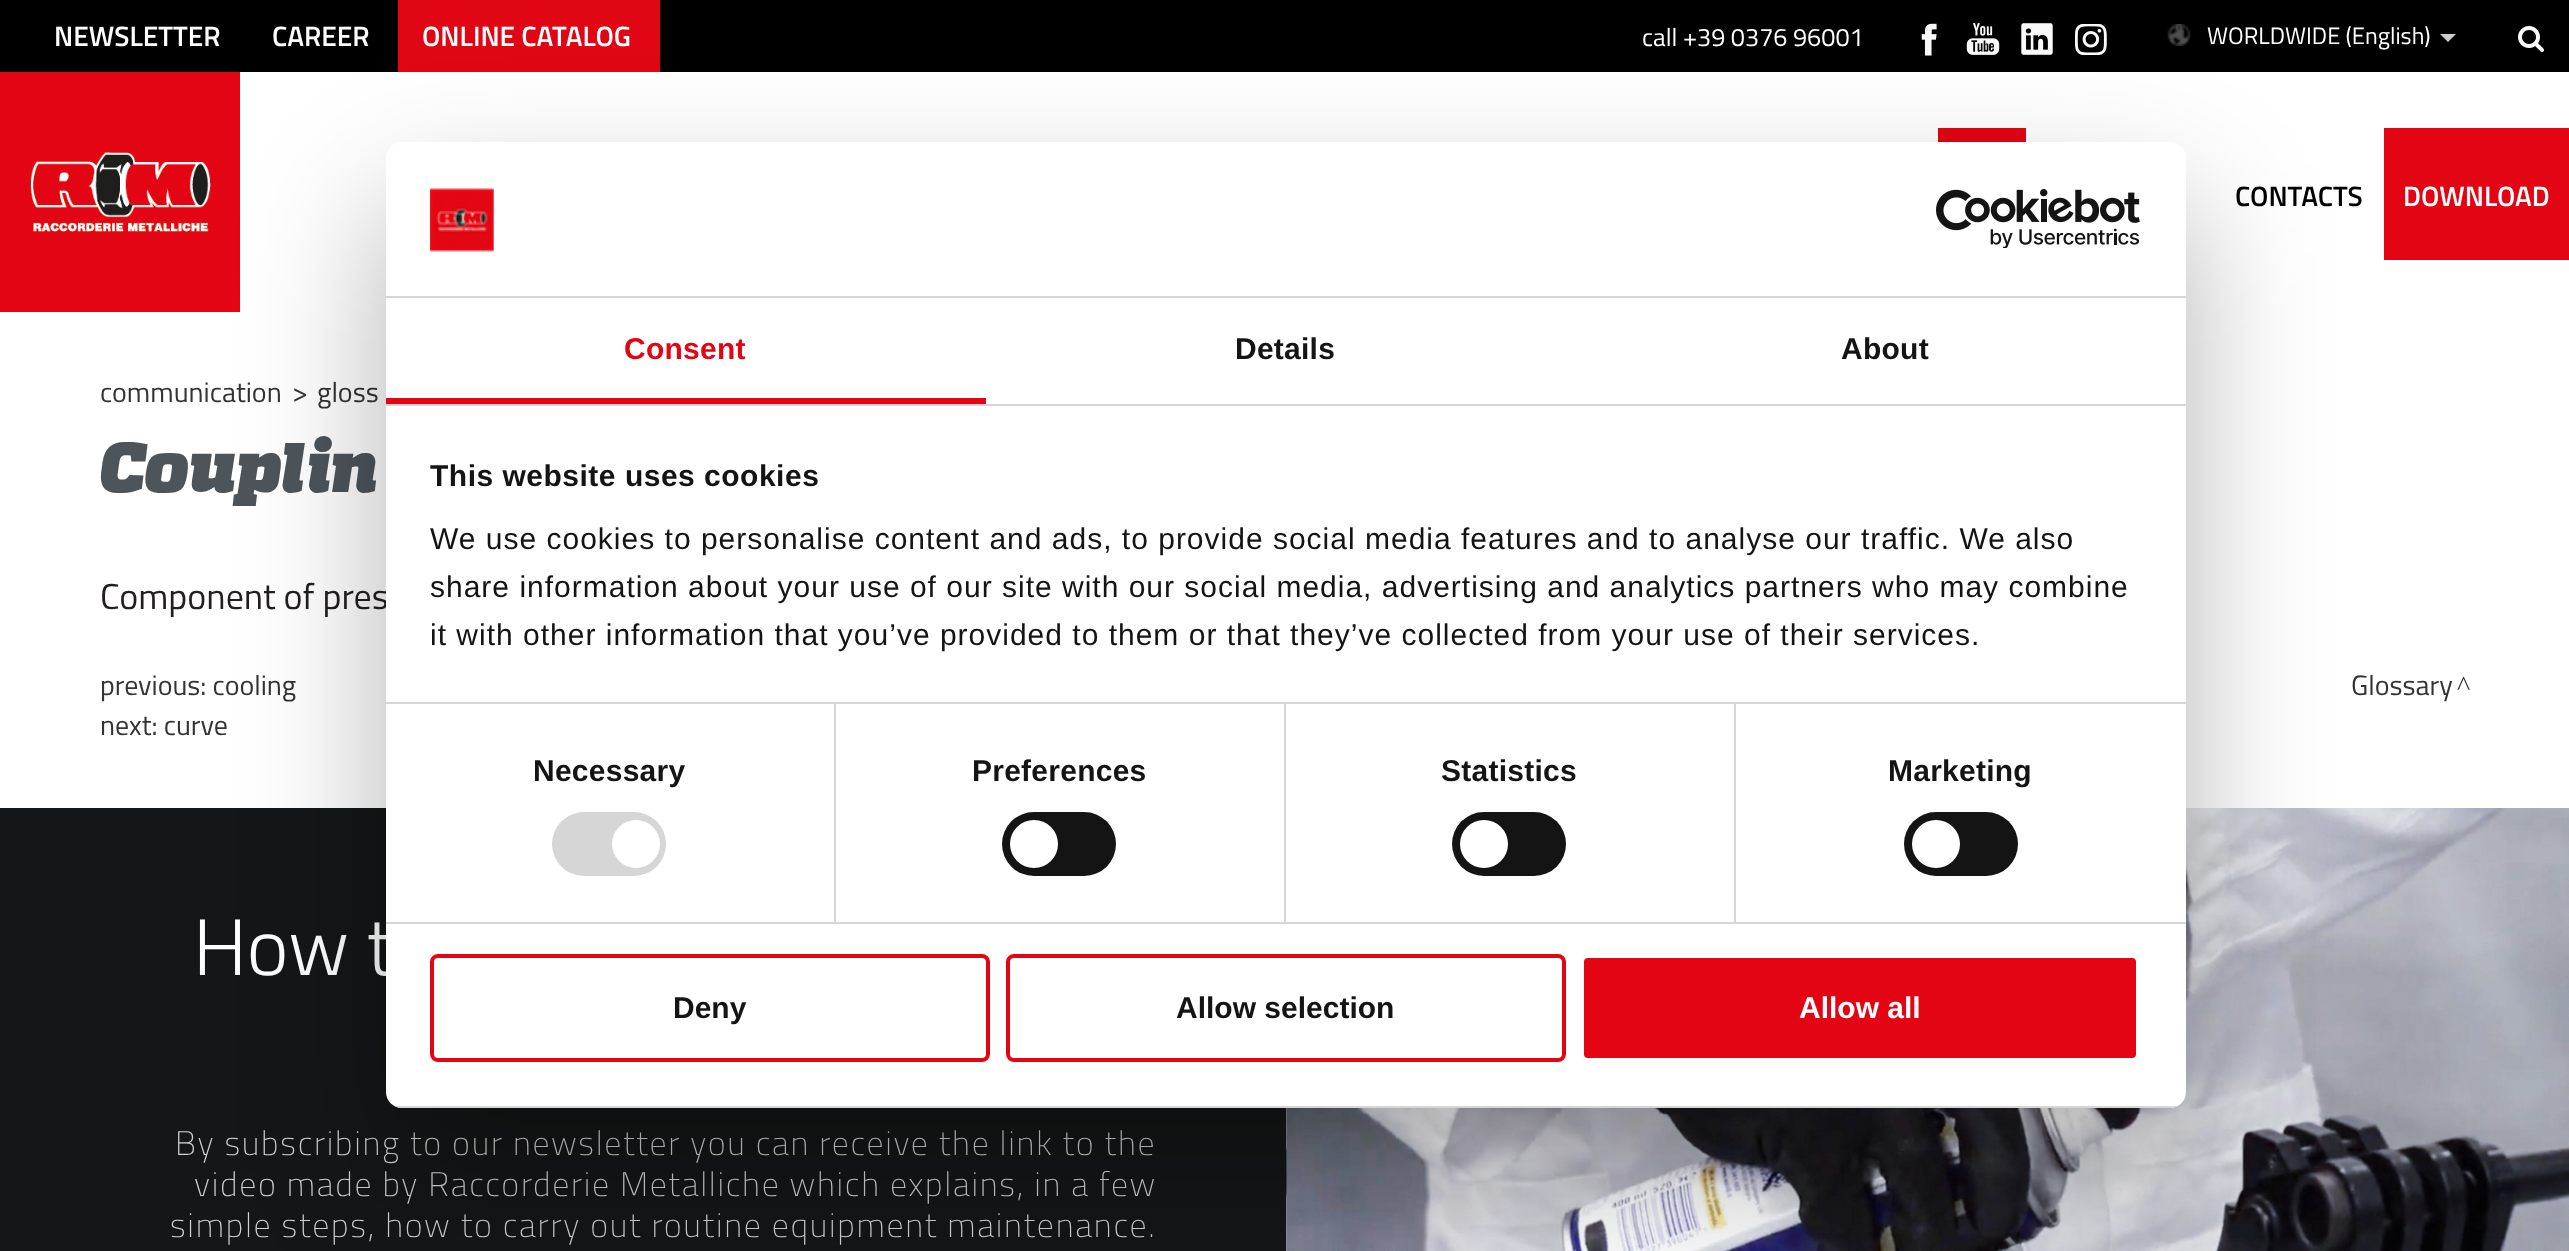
<svg xmlns="http://www.w3.org/2000/svg" width="2569" height="1251" viewBox="0 0 2569 1251">
  <style>
    .t1 { font: 600 28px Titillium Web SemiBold; fill: #fff; }
    .t2 { font: 25.25px Titillium Web; fill: #fff; }
    .t3 { font: 23.75px Titillium Web; fill: #fff; }
    .t4 { font: 600 28px Titillium Web SemiBold; fill: #000; }
    .t5 { font: 28px Titillium Web; fill: #333; }
    .t6 { font: 900 70px 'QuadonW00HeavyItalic'; fill: #4d555b; }
    .t7 { font: 36px Titillium Web; fill: #231f20; }
    .t8 { font: 28px Liberation Serif; fill: #333; }
    .t9 { font: 300 80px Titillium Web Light; fill: #fff; }
    .t10 { font: 200 34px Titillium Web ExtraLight; letter-spacing: 1.7px; fill: #d4d1d1; }
    .t11 { font: bold 30px Liberation Sans; letter-spacing: 0.25px; fill: #e30513; }
    .t12 { font: bold 30px Liberation Sans; letter-spacing: 0.25px; fill: #141414; }
    .t13 { font: bold 30px Liberation Sans; letter-spacing: 0.5px; fill: #141414; }
    .t14 { font: 30px Liberation Sans; letter-spacing: 1px; fill: #141414; }
    .t15 { font: bold 30px Liberation Sans; fill: #141414; }
    .t16 { font: bold 30px Liberation Sans; fill: #fff; }
  </style>
  <defs>
    <clipPath id="clip1"><rect x="386" y="142" width="1800" height="966" rx="16"/></clipPath>
  </defs>
  <rect width="100%" height="100%" fill="#fff"/>
  <rect x="0" y="0" width="2569" height="72" fill="#000"/>
  <text x="54" y="46" class="t1">NEWSLETTER</text>
  <text x="272" y="46" class="t1">CAREER</text>
  <rect x="398" y="0" width="262" height="72" fill="#e10613"/>
  <text x="422" y="46" class="t1">ONLINE CATALOG</text>
  <text x="1642" y="46" class="t2">call +39 0376 96001</text>
  <image x="1921" y="23" width="16" height="33" href="images/1.png"/>
  <image x="1966" y="23" width="34" height="32" href="images/2.png"/>
  <image x="2021" y="23" width="32" height="32" href="images/3.png"/>
  <image x="2075" y="24" width="32" height="31" href="images/4.png"/>
  <image x="2167" y="24" width="24" height="22" href="images/5.png"/>
  <text x="2207" y="44" class="t3">WORLDWIDE (English)</text>
  <path d="M2440 34H2456L2448 42Z" fill="#ccc"/>
  <image x="2518" y="26" width="26" height="26" href="images/6.png"/>
  <image x="0" y="72" width="240" height="240" href="images/7.png"/>
  <rect x="1938" y="128" width="88" height="14" fill="#e30513"/>
  <text x="2235" y="206" class="t4">CONTACTS</text>
  <rect x="2384" y="128" width="185" height="132" fill="#e30513"/>
  <text x="2403" y="206" class="t1">DOWNLOAD</text>
  <text x="100" y="402" class="t5">communication</text>
  <text x="292" y="402" class="t5">&gt;</text>
  <text x="317" y="402" class="t5">gloss</text>
  <text x="100" y="492" class="t6">Couplin</text>
  <text x="100" y="609" class="t7">Component of pres</text>
  <text x="100" y="695" class="t5">previous: cooling</text>
  <text x="100" y="735" class="t5">next: curve</text>
  <text x="2351" y="695" class="t5">Glossary</text>
  <text x="2457" y="695" class="t8">^</text>
  <rect x="0" y="808" width="1286" height="443" fill="#151617"/>
  <text x="193" y="975" class="t9">How t</text>
  <text x="175" y="1155" class="t10">By subscribing to our newsletter you can receive the link to the</text>
  <text x="194" y="1196" class="t10">video made by Raccorderie Metalliche which explains, in a few</text>
  <text x="170" y="1237" class="t10">simple steps, how to carry out routine equipment maintenance.</text>
  <image x="1286" y="808" width="1283" height="443" href="images/8.png"/>
  <rect x="386" y="206" width="1800" height="966" rx="16" fill="#0000004d" filter="blur(68px)"/>
  <rect x="386" y="142" width="1800" height="966" rx="16" fill="#fff"/>
  <rect x="386" y="296" width="1800" height="2" fill="#d6d6d6"/>
  <image x="430" y="188" width="64" height="64" href="images/9.png"/>
  <image x="1936" y="189" width="204" height="59" href="images/10.png"/>
  <rect x="386" y="404" width="1800" height="2" fill="#d6d6d6"/>
  <rect x="386" y="398" width="600" height="6" fill="#e30513"/>
  <text x="624" y="359" class="t11">Consent</text>
  <text x="1235" y="359" class="t12">Details</text>
  <text x="1841" y="359" class="t12">About</text>
  <rect x="386" y="702" width="1800" height="2" fill="#d6d6d6"/>
  <text x="430" y="486" class="t13">This website uses cookies</text>
  <text x="430" y="549" class="t14">We use cookies to personalise content and ads, to provide social media features and to analyse our traffic. We also</text>
  <text x="430" y="597" class="t14">share information about your use of our site with our social media, advertising and analytics partners who may combine</text>
  <text x="430" y="645" class="t14">it with other information that you’ve provided to them or that they’ve collected from your use of their services.</text>
  <rect x="386" y="922" width="1800" height="2" fill="#d6d6d6"/>
  <rect x="834" y="704" width="2" height="218" fill="#d6d6d6"/>
  <text x="533" y="781" class="t12">Necessary</text>
  <rect x="552" y="812" width="114" height="64" rx="32" fill="#d6d6d6"/>
  <circle cx="636" cy="844" r="24" fill="#fff"/>
  <rect x="1284" y="704" width="2" height="218" fill="#d6d6d6"/>
  <text x="972" y="781" class="t12">Preferences</text>
  <rect x="1002" y="812" width="114" height="64" rx="32" fill="#141414"/>
  <circle cx="1034" cy="844" r="24" fill="#fff"/>
  <rect x="1734" y="704" width="2" height="218" fill="#d6d6d6"/>
  <text x="1441" y="781" class="t12">Statistics</text>
  <rect x="1452" y="812" width="114" height="64" rx="32" fill="#141414"/>
  <circle cx="1484" cy="844" r="24" fill="#fff"/>
  <text x="1888" y="781" class="t12">Marketing</text>
  <rect x="1904" y="812" width="114" height="64" rx="32" fill="#141414"/>
  <circle cx="1936" cy="844" r="24" fill="#fff"/>
  <g clip-path="url(#clip1)">
    <rect x="386" y="1106" width="1800" height="2" fill="#d6d6d6"/>
  </g>
  <rect x="432" y="956" width="556" height="104" rx="6" fill="none" stroke="#e30513" stroke-width="4"/>
  <text x="673" y="1018" class="t15">Deny</text>
  <rect x="1008" y="956" width="556" height="104" rx="6" fill="none" stroke="#e30513" stroke-width="4"/>
  <text x="1176" y="1018" class="t15">Allow selection</text>
  <rect x="1582" y="956" width="556" height="104" rx="6" fill="#e30513" stroke="#fff" stroke-width="4"/>
  <text x="1799" y="1018" class="t16">Allow all</text>
</svg>
